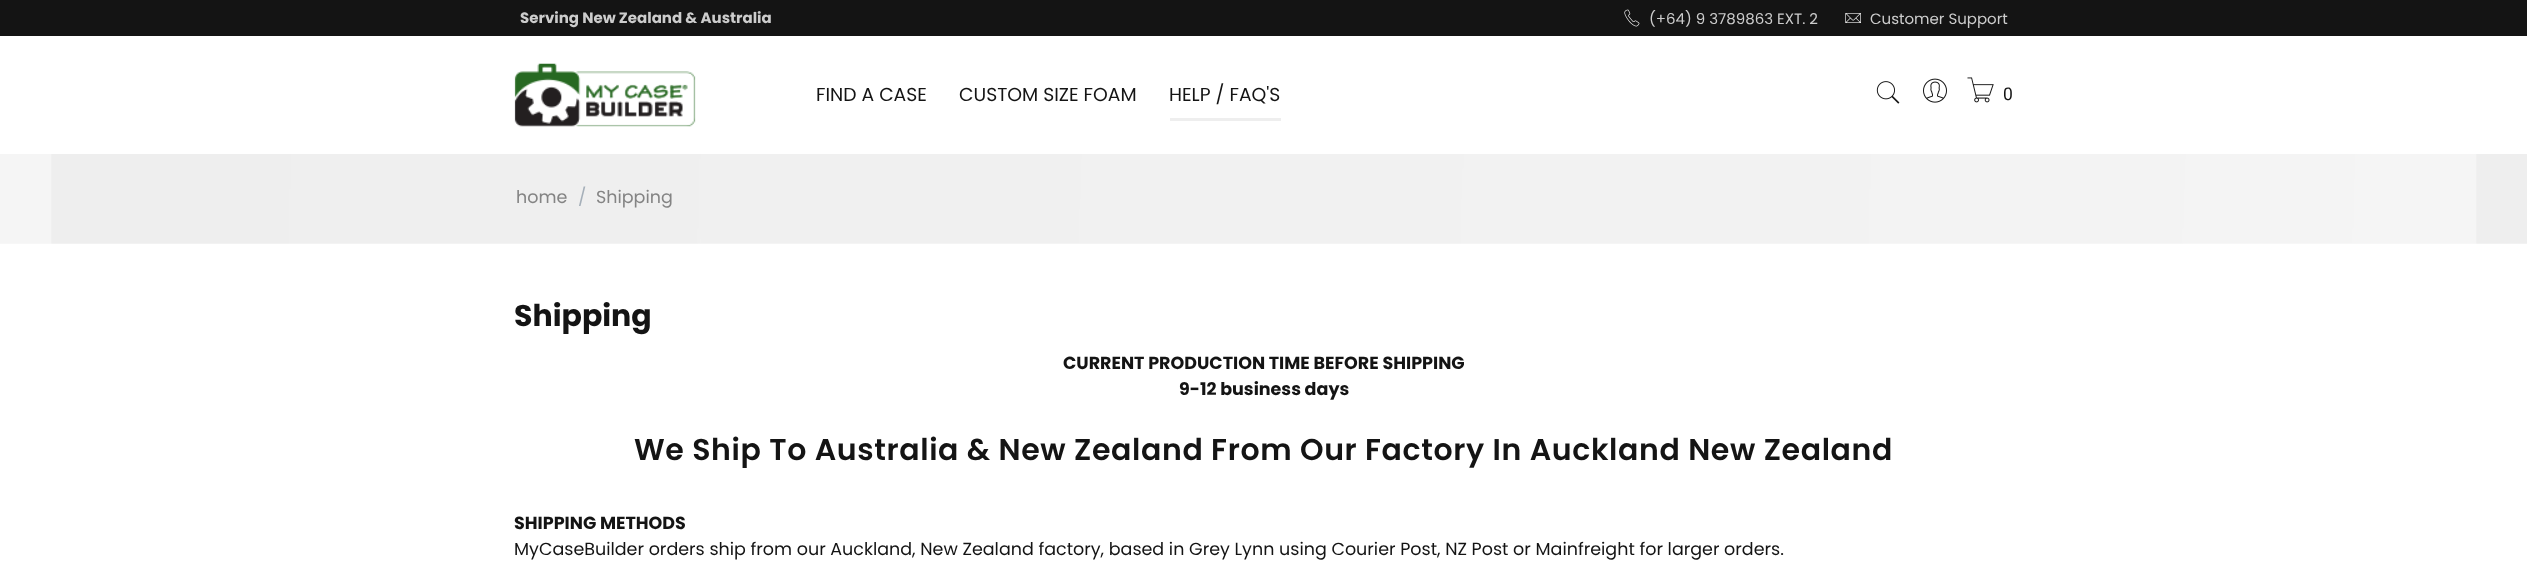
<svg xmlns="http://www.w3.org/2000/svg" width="2527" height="563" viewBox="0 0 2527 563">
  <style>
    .t1 { font: bold 15px Poppins; fill: #ccc; }
    .t2 { font: 15px Poppins; fill: #ccc; }
    .t3 { font: 18.75px Poppins; fill: #141414; }
    .t4 { font: 17.5px Roboto; fill: #141414; }
    .t5 { font: 17.5px Poppins; fill: #848484; }
    .t6 { font: 17.5px Poppins; fill: #a5afb9; }
    .t7 { font: bold 30px Poppins; fill: #141414; }
    .t8 { font: bold 17.5px Poppins; fill: #141414; }
    .t9 { font: 600 30px Poppins; letter-spacing: 0.62px; fill: #141414; }
    .t10 { font: 17.5px Poppins; fill: #141414; }
  </style>
  <rect width="100%" height="100%" fill="#fff"/>
  <rect x="0" y="0" width="2527" height="36" fill="#141414"/>
  <text x="520" y="23" class="t1">Serving New Zealand &amp; Australia</text>
  <image x="1624" y="9" width="16" height="18" href="images/1.png"/>
  <text x="1649" y="24" class="t2">(+64) 9 3789863 EXT. 2</text>
  <image x="1845" y="13" width="16" height="10" href="images/2.png"/>
  <text x="1870" y="24" class="t2">Customer Support</text>
  <image x="514" y="63" width="182" height="64" href="images/3.png"/>
  <text x="816" y="101" class="t3">FIND A CASE</text>
  <text x="959" y="101" class="t3">CUSTOM SIZE FOAM</text>
  <rect x="1170" y="118" width="111" height="3" fill="#eee"/>
  <text x="1169" y="101" class="t3">HELP / FAQ'S</text>
  <image x="1876" y="81" width="24" height="23" href="images/4.png"/>
  <image x="1923" y="78" width="24" height="25" href="images/5.png"/>
  <image x="1967" y="77" width="27" height="26" href="images/6.png"/>
  <text x="2003" y="100" class="t4">0</text>
  <image x="0" y="154" width="2527" height="90" href="images/7.png"/>
  <text x="516" y="203" class="t5">home</text>
  <text x="578" y="203" class="t6">/</text>
  <text x="596" y="203" class="t5">Shipping</text>
  <text x="514" y="326" class="t7">Shipping</text>
  <text x="1063" y="369" class="t8">CURRENT PRODUCTION TIME BEFORE SHIPPING</text>
  <text x="1179" y="395" class="t8">9-12 business days</text>
  <text x="634" y="460" class="t9">We Ship To Australia &amp; New Zealand From Our Factory In Auckland New Zealand</text>
  <text x="514" y="529" class="t8">SHIPPING METHODS</text>
  <text x="514" y="555" class="t10">MyCaseBuilder orders ship from our Auckland, New Zealand factory, based in Grey Lynn using Courier Post, NZ Post or Mainfreight for larger orders.</text>
</svg>
